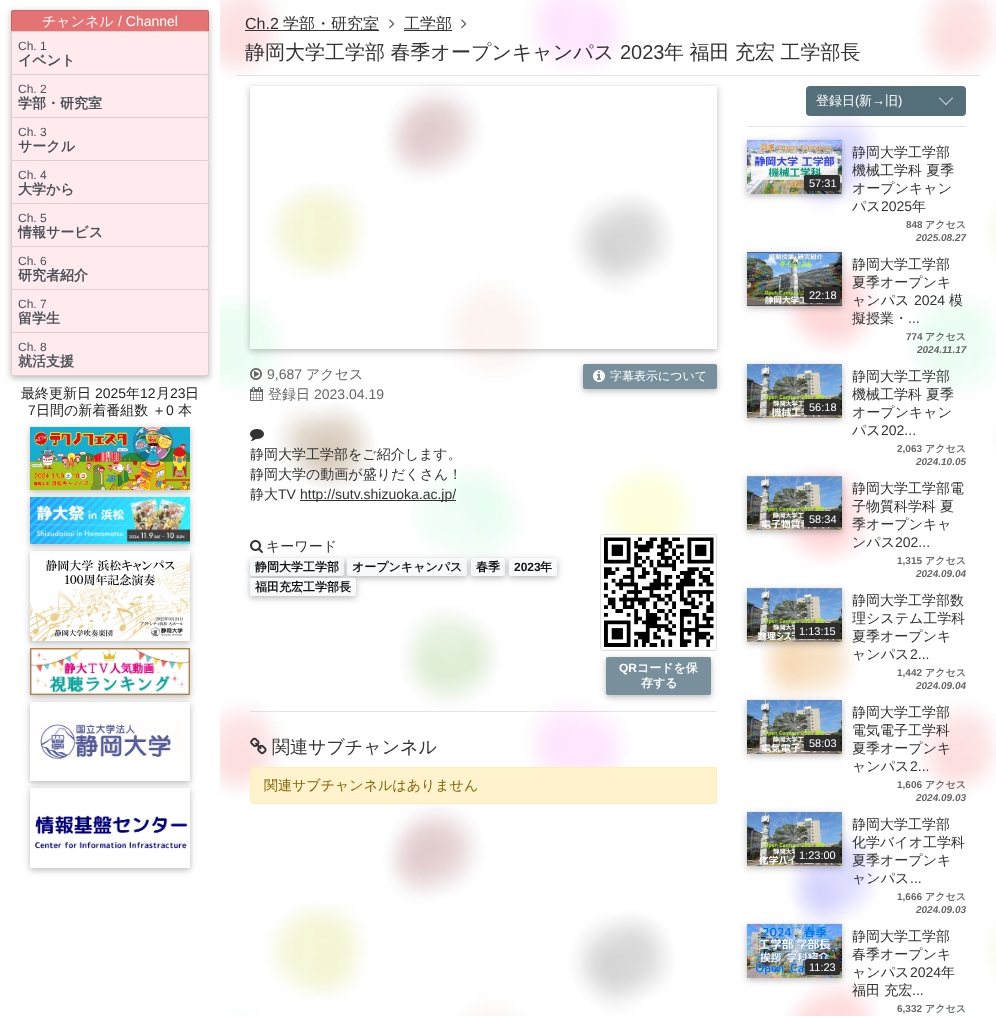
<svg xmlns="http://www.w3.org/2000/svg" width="996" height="1016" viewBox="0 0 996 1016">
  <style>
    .t1 { font: 500 14px WenQuanYi Zen Hei; fill: #fff; }
    .t2 { font: 14px Liberation Sans; fill: #fff; }
    .t3 { font: 12px Liberation Sans; fill: #495057; }
    .t4 { font: bold 14px WenQuanYi Zen Hei; fill: #495057; }
    .t5 { font: 500 14px WenQuanYi Zen Hei; fill: #222; }
    .t6 { font: 14px Liberation Sans; fill: #222; }
    .t7 { font: 16px Liberation Sans; fill: #333; }
    .t8 { font: 500 16px WenQuanYi Zen Hei; fill: #333; }
    .t9 { font: 500 20px WenQuanYi Zen Hei; fill: #333; }
    .t10 { font: 20px Liberation Sans; fill: #333; }
    .t11 { font: 14px Liberation Sans; fill: #666; }
    .t12 { font: 500 14px WenQuanYi Zen Hei; fill: #666; }
    .t13 { font: 500 12px WenQuanYi Zen Hei; fill: #fff; }
    .t14 { font: 500 14px WenQuanYi Zen Hei; fill: #333; }
    .t15 { font: 14px Liberation Sans; fill: #333; }
    .t16 { font: bold 12px WenQuanYi Zen Hei; fill: #111; }
    .t17 { font: bold 12px Liberation Sans; fill: #111; }
    .t18 { font: bold 12px Liberation Sans; fill: #fff; }
    .t19 { font: bold 12px WenQuanYi Zen Hei; fill: #fff; }
    .t20 { font: 500 18px WenQuanYi Zen Hei; fill: #333; }
    .t21 { font: 500 14px WenQuanYi Zen Hei; fill: #856404; }
    .t22 { font: 500 13px WenQuanYi Zen Hei; fill: #fff; }
    .t23 { font: 13px Liberation Sans; fill: #fff; }
    .t24 { font: 11px Liberation Sans; fill: #fff; }
    .t25 { font: bold 10px Liberation Sans; fill: #666; }
    .t26 { font: bold 10px WenQuanYi Zen Hei; fill: #666; }
    .t27 { font: italic bold 10px Liberation Sans; fill: #666; }
  </style>
  <defs>
    <clipPath id="clip1"><path d="M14 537H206V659H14ZM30 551H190V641H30Z" clip-rule="evenodd"/></clipPath>
    <clipPath id="clip2"><path d="M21 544H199V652H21ZM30 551H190V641H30Z" clip-rule="evenodd"/></clipPath>
    <clipPath id="clip3"><path d="M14 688H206V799H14ZM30 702H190V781H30Z" clip-rule="evenodd"/></clipPath>
    <clipPath id="clip4"><path d="M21 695H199V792H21ZM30 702H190V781H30Z" clip-rule="evenodd"/></clipPath>
    <clipPath id="clip5"><path d="M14 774H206V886H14ZM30 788H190V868H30Z" clip-rule="evenodd"/></clipPath>
    <clipPath id="clip6"><path d="M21 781H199V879H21ZM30 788H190V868H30Z" clip-rule="evenodd"/></clipPath>
    <clipPath id="clip7"><path d="M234 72H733V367H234ZM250 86H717V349H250Z" clip-rule="evenodd"/></clipPath>
    <clipPath id="clip8"><path d="M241 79H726V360H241ZM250 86H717V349H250Z" clip-rule="evenodd"/></clipPath>
    <clipPath id="clip9"><rect x="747" y="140" width="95" height="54"/></clipPath>
    <clipPath id="clip10"><rect x="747" y="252" width="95" height="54"/></clipPath>
    <clipPath id="clip11"><rect x="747" y="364" width="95" height="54"/></clipPath>
    <clipPath id="clip12"><rect x="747" y="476" width="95" height="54"/></clipPath>
    <clipPath id="clip13"><rect x="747" y="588" width="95" height="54"/></clipPath>
    <clipPath id="clip14"><rect x="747" y="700" width="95" height="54"/></clipPath>
    <clipPath id="clip15"><rect x="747" y="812" width="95" height="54"/></clipPath>
    <clipPath id="clip16"><rect x="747" y="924" width="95" height="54"/></clipPath>
  </defs>
  <rect width="100%" height="100%" fill="#fff"/>
  <image x="220" y="0" width="776" height="1016" href="images/1.png"/>
  <rect x="220" y="0" width="776" height="1016" fill="#ffffff80"/>
  <rect x="11" y="12" width="198" height="366" fill="#0000001f" filter="blur(5px)"/>
  <rect x="11" y="12" width="198" height="366" fill="#00000029" filter="blur(2.5px)"/>
  <rect x="11" y="10" width="198" height="22" rx="2" fill="#e57373"/>
  <rect x="11.5" y="10.5" width="197" height="21" rx="1.5" fill="none" stroke="#0000001f"/>
  <text x="42" y="26" class="t1">チャンネル</text>
  <text x="118" y="26" class="t2">/ Channel</text>
  <rect x="11" y="31" width="198" height="44" rx="2" fill="#ffebee"/>
  <rect x="11.5" y="31.5" width="197" height="43" rx="1.5" fill="none" stroke="#0000001f"/>
  <text x="18" y="50" class="t3">Ch. 1</text>
  <text x="18" y="65" class="t4">イベント</text>
  <rect x="11" y="74" width="198" height="44" rx="2" fill="#ffebee"/>
  <rect x="11.5" y="74.5" width="197" height="43" rx="1.5" fill="none" stroke="#0000001f"/>
  <text x="18" y="93" class="t3">Ch. 2</text>
  <text x="18" y="108" class="t4">学部・研究室</text>
  <rect x="11" y="117" width="198" height="44" rx="2" fill="#ffebee"/>
  <rect x="11.5" y="117.5" width="197" height="43" rx="1.5" fill="none" stroke="#0000001f"/>
  <text x="18" y="136" class="t3">Ch. 3</text>
  <text x="18" y="151" class="t4">サークル</text>
  <rect x="11" y="160" width="198" height="44" rx="2" fill="#ffebee"/>
  <rect x="11.5" y="160.5" width="197" height="43" rx="1.5" fill="none" stroke="#0000001f"/>
  <text x="18" y="179" class="t3">Ch. 4</text>
  <text x="18" y="194" class="t4">大学から</text>
  <rect x="11" y="203" width="198" height="44" rx="2" fill="#ffebee"/>
  <rect x="11.5" y="203.5" width="197" height="43" rx="1.5" fill="none" stroke="#0000001f"/>
  <text x="18" y="222" class="t3">Ch. 5</text>
  <text x="18" y="237" class="t4">情報サービス</text>
  <rect x="11" y="246" width="198" height="44" rx="2" fill="#ffebee"/>
  <rect x="11.5" y="246.5" width="197" height="43" rx="1.5" fill="none" stroke="#0000001f"/>
  <text x="18" y="265" class="t3">Ch. 6</text>
  <text x="18" y="280" class="t4">研究者紹介</text>
  <rect x="11" y="289" width="198" height="44" rx="2" fill="#ffebee"/>
  <rect x="11.5" y="289.5" width="197" height="43" rx="1.5" fill="none" stroke="#0000001f"/>
  <text x="18" y="308" class="t3">Ch. 7</text>
  <text x="18" y="323" class="t4">留学生</text>
  <rect x="11" y="332" width="198" height="44" rx="2" fill="#ffebee"/>
  <rect x="11.5" y="332.5" width="197" height="43" rx="1.5" fill="none" stroke="#0000001f"/>
  <text x="18" y="351" class="t3">Ch. 8</text>
  <text x="18" y="366" class="t4">就活支援</text>
  <text x="21" y="398" class="t5">最終更新日</text>
  <text x="95" y="398" class="t6">2025</text>
  <text x="126" y="398" class="t5">年</text>
  <text x="140" y="398" class="t6">12</text>
  <text x="156" y="398" class="t5">月</text>
  <text x="170" y="398" class="t6">23</text>
  <text x="185" y="398" class="t5">日</text>
  <text x="28" y="415" class="t6">7</text>
  <text x="36" y="415" class="t5">日間の新着番組数</text>
  <text x="152" y="415" class="t5">＋</text>
  <text x="166" y="415" class="t6">0</text>
  <text x="178" y="415" class="t5">本</text>
  <rect x="30" y="429" width="160" height="63" fill="#0000001f" filter="blur(5px)"/>
  <rect x="30" y="429" width="160" height="63" fill="#00000029" filter="blur(2.5px)"/>
  <image x="30" y="427" width="160" height="63" href="images/2.png"/>
  <rect x="30" y="499" width="160" height="47" fill="#0000001f" filter="blur(5px)"/>
  <rect x="30" y="499" width="160" height="47" fill="#00000029" filter="blur(2.5px)"/>
  <image x="30" y="497" width="160" height="47" href="images/3.png"/>
  <g clip-path="url(#clip1)">
    <rect x="30" y="553" width="160" height="90" fill="#0000001f" filter="blur(5px)"/>
  </g>
  <g clip-path="url(#clip2)">
    <rect x="30" y="553" width="160" height="90" fill="#00000029" filter="blur(2.5px)"/>
  </g>
  <image x="30" y="559" width="160" height="82" href="images/4.png"/>
  <rect x="30" y="650" width="160" height="47" fill="#0000001f" filter="blur(5px)"/>
  <rect x="30" y="650" width="160" height="47" fill="#00000029" filter="blur(2.5px)"/>
  <image x="30" y="648" width="160" height="47" href="images/5.png"/>
  <g clip-path="url(#clip3)">
    <rect x="30" y="704" width="160" height="79" fill="#0000001f" filter="blur(5px)"/>
  </g>
  <g clip-path="url(#clip4)">
    <rect x="30" y="704" width="160" height="79" fill="#00000029" filter="blur(2.5px)"/>
  </g>
  <image x="35" y="702" width="150" height="58" href="images/6.png"/>
  <g clip-path="url(#clip5)">
    <rect x="30" y="790" width="160" height="80" fill="#0000001f" filter="blur(5px)"/>
  </g>
  <g clip-path="url(#clip6)">
    <rect x="30" y="790" width="160" height="80" fill="#00000029" filter="blur(2.5px)"/>
  </g>
  <image x="35" y="788" width="153" height="61" href="images/7.png"/>
  <text x="245" y="29" class="t7">Ch.2</text>
  <rect x="245" y="30" width="134" height="1" fill="#333"/>
  <text x="283" y="29" class="t8">学部・研究室</text>
  <image x="389" y="19" width="6" height="10" href="images/8.png"/>
  <rect x="404" y="30" width="48" height="1" fill="#333"/>
  <text x="404" y="29" class="t8">工学部</text>
  <image x="461" y="19" width="6" height="10" href="images/8.png"/>
  <text x="245" y="59" word-spacing="-0.5" class="t9">静岡大学工学部 春季オープンキャンパス</text>
  <text x="620" y="59" class="t10">2023</text>
  <text x="664" y="59" word-spacing="-0.5" class="t9">年 福田 充宏 工学部長</text>
  <rect x="235" y="75" width="746" height="1" fill="#0000001a"/>
  <g clip-path="url(#clip7)">
    <rect x="250" y="88" width="467" height="263" fill="#0000001f" filter="blur(5px)"/>
  </g>
  <g clip-path="url(#clip8)">
    <rect x="250" y="88" width="467" height="263" fill="#00000029" filter="blur(2.5px)"/>
  </g>
  <image x="250" y="368" width="12" height="12" href="images/9.png"/>
  <text x="267" y="379" class="t11">9,687</text>
  <text x="306" y="379" class="t12">アクセス</text>
  <image x="250" y="387" width="13" height="14" href="images/10.png"/>
  <text x="268" y="399" class="t12">登録日</text>
  <text x="314" y="399" class="t11">2023.04.19</text>
  <rect x="583" y="366" width="134" height="25" rx="2" fill="#0000001f" filter="blur(5px)"/>
  <rect x="583" y="366" width="134" height="25" rx="2" fill="#00000029" filter="blur(2.5px)"/>
  <rect x="583" y="364" width="134" height="25" rx="2" fill="#78909c"/>
  <image x="593" y="370" width="12" height="12" href="images/11.png"/>
  <text x="610" y="380" class="t13">字幕表示について</text>
  <image x="250" y="429" width="14" height="12" href="images/12.png"/>
  <text x="250" y="459" class="t14">静岡大学工学部をご紹介します。</text>
  <text x="250" y="479" class="t14">静岡大学の動画が盛りだくさん！</text>
  <text x="250" y="499" class="t14">静大</text>
  <text x="278" y="499" class="t15">TV</text>
  <rect x="300" y="500" width="156" height="1" fill="#333"/>
  <text x="300" y="499" class="t15">http://sutv.shizuoka.ac.jp/</text>
  <image x="250" y="540" width="13" height="13" href="images/13.png"/>
  <text x="266" y="551" class="t14">キーワード</text>
  <rect x="250" y="560" width="94" height="18" rx="2" fill="#0000001f" filter="blur(5px)"/>
  <rect x="250" y="560" width="94" height="18" rx="2" fill="#00000029" filter="blur(2.5px)"/>
  <rect x="250" y="558" width="94" height="18" rx="2" fill="#f8f9fa"/>
  <text x="255" y="571" class="t16">静岡大学工学部</text>
  <rect x="347" y="560" width="120" height="18" rx="2" fill="#0000001f" filter="blur(5px)"/>
  <rect x="347" y="560" width="120" height="18" rx="2" fill="#00000029" filter="blur(2.5px)"/>
  <rect x="347" y="558" width="120" height="18" rx="2" fill="#f8f9fa"/>
  <text x="352" y="571" class="t16">オープンキャンパス</text>
  <rect x="471" y="560" width="34" height="18" rx="2" fill="#0000001f" filter="blur(5px)"/>
  <rect x="471" y="560" width="34" height="18" rx="2" fill="#00000029" filter="blur(2.5px)"/>
  <rect x="471" y="558" width="34" height="18" rx="2" fill="#f8f9fa"/>
  <text x="476" y="571" class="t16">春季</text>
  <rect x="509" y="560" width="48" height="18" rx="2" fill="#0000001f" filter="blur(5px)"/>
  <rect x="509" y="560" width="48" height="18" rx="2" fill="#00000029" filter="blur(2.5px)"/>
  <rect x="509" y="558" width="48" height="18" rx="2" fill="#f8f9fa"/>
  <text x="514" y="571" class="t17">2023</text>
  <text x="540" y="571" class="t16">年</text>
  <rect x="250" y="580" width="106" height="18" rx="2" fill="#0000001f" filter="blur(5px)"/>
  <rect x="250" y="580" width="106" height="18" rx="2" fill="#00000029" filter="blur(2.5px)"/>
  <rect x="250" y="578" width="106" height="18" rx="2" fill="#f8f9fa"/>
  <text x="255" y="591" class="t16">福田充宏工学部長</text>
  <rect x="600.5" y="534.5" width="116" height="116" rx="2" fill="#fff" stroke="#ddd"/>
  <image x="604" y="537" width="110" height="110" href="images/14.png"/>
  <rect x="250" y="711" width="467" height="1" fill="#0000001a"/>
  <rect x="606" y="659" width="105" height="38" rx="2" fill="#0000001f" filter="blur(5px)"/>
  <rect x="606" y="659" width="105" height="38" rx="2" fill="#00000029" filter="blur(2.5px)"/>
  <rect x="606" y="657" width="105" height="38" rx="2" fill="#78909c"/>
  <text x="619" y="672" class="t18">QR</text>
  <text x="637" y="672" class="t19">コードを保</text>
  <text x="641" y="687" class="t19">存する</text>
  <image x="250" y="737" width="17" height="18" href="images/15.png"/>
  <text x="272" y="753" class="t20">関連サブチャンネル</text>
  <rect x="250.5" y="767.5" width="466" height="36" rx="2" fill="#fff3cd" stroke="#ffeeba"/>
  <text x="264" y="790" class="t21">関連サブチャンネルはありません</text>
  <rect x="806" y="86" width="160" height="30" rx="4" fill="#546e7a"/>
  <text x="816" y="105" class="t22">登録日</text>
  <text x="855" y="105" class="t23">(</text>
  <text x="859" y="105" class="t22">新</text>
  <text x="872" y="105" class="t23">→</text>
  <text x="885" y="105" class="t22">旧</text>
  <text x="898" y="105" class="t23">)</text>
  <path d="M952.5 97.5L953 98L946 105L945.5 104.5Z" fill="#fff"/>
  <path d="M939.5 97.5L946.5 104.5L946 105L939 98Z" fill="#fff"/>
  <rect x="747" y="126" width="219" height="1" fill="#0000001a"/>
  <rect x="747" y="142" width="95" height="54" fill="#0000001f" filter="blur(5px)"/>
  <rect x="747" y="142" width="95" height="54" fill="#00000029" filter="blur(2.5px)"/>
  <image x="747" y="140" width="95" height="54" href="images/16.png"/>
  <g clip-path="url(#clip9)">
    <rect x="804" y="177" width="36" height="16" rx="2" fill="#0000001f" filter="blur(5px)"/>
    <rect x="804" y="177" width="36" height="16" rx="2" fill="#00000029" filter="blur(2.5px)"/>
  </g>
  <rect x="804" y="175" width="36" height="16" rx="2" fill="#2e2e2e"/>
  <text x="809" y="187" class="t24">57:31</text>
  <text x="852" y="157" class="t14">静岡大学工学部</text>
  <text x="852" y="175" class="t14">機械工学科 夏季</text>
  <text x="852" y="193" class="t14">オープンキャン</text>
  <text x="852" y="211" class="t14">パス</text>
  <text x="881" y="211" class="t15">2025</text>
  <text x="912" y="211" class="t14">年</text>
  <text x="906" y="228" class="t25">848</text>
  <text x="925" y="228" class="t26">アクセス</text>
  <text x="916" y="241" class="t27">2025.08.27</text>
  <rect x="747" y="254" width="95" height="54" fill="#0000001f" filter="blur(5px)"/>
  <rect x="747" y="254" width="95" height="54" fill="#00000029" filter="blur(2.5px)"/>
  <image x="747" y="252" width="95" height="54" href="images/17.png"/>
  <g clip-path="url(#clip10)">
    <rect x="804" y="289" width="36" height="16" rx="2" fill="#0000001f" filter="blur(5px)"/>
    <rect x="804" y="289" width="36" height="16" rx="2" fill="#00000029" filter="blur(2.5px)"/>
  </g>
  <rect x="804" y="287" width="36" height="16" rx="2" fill="#2e2e2e"/>
  <text x="809" y="299" class="t24">22:18</text>
  <text x="852" y="269" class="t14">静岡大学工学部</text>
  <text x="852" y="287" class="t14">夏季オープンキ</text>
  <text x="852" y="305" class="t14">ャンパス</text>
  <text x="914" y="305" class="t15">2024</text>
  <text x="949" y="305" class="t14">模</text>
  <text x="852" y="323" class="t14">擬授業・</text>
  <text x="908" y="323" class="t15">...</text>
  <text x="906" y="340" class="t25">774</text>
  <text x="925" y="340" class="t26">アクセス</text>
  <text x="917" y="353" class="t27">2024.11.17</text>
  <rect x="747" y="366" width="95" height="54" fill="#0000001f" filter="blur(5px)"/>
  <rect x="747" y="366" width="95" height="54" fill="#00000029" filter="blur(2.5px)"/>
  <image x="747" y="364" width="95" height="54" href="images/18.png"/>
  <g clip-path="url(#clip11)">
    <rect x="804" y="401" width="36" height="16" rx="2" fill="#0000001f" filter="blur(5px)"/>
    <rect x="804" y="401" width="36" height="16" rx="2" fill="#00000029" filter="blur(2.5px)"/>
  </g>
  <rect x="804" y="399" width="36" height="16" rx="2" fill="#2e2e2e"/>
  <text x="809" y="411" class="t24">56:18</text>
  <text x="852" y="381" class="t14">静岡大学工学部</text>
  <text x="852" y="399" class="t14">機械工学科</text>
  <text x="926" y="399" class="t14">夏季</text>
  <text x="852" y="417" class="t14">オープンキャン</text>
  <text x="852" y="435" class="t14">パス</text>
  <text x="881" y="435" class="t15">202...</text>
  <text x="897" y="452" class="t25">2,063</text>
  <text x="925" y="452" class="t26">アクセス</text>
  <text x="916" y="465" class="t27">2024.10.05</text>
  <rect x="747" y="478" width="95" height="54" fill="#0000001f" filter="blur(5px)"/>
  <rect x="747" y="478" width="95" height="54" fill="#00000029" filter="blur(2.5px)"/>
  <image x="747" y="476" width="95" height="54" href="images/19.png"/>
  <g clip-path="url(#clip12)">
    <rect x="804" y="513" width="36" height="16" rx="2" fill="#0000001f" filter="blur(5px)"/>
    <rect x="804" y="513" width="36" height="16" rx="2" fill="#00000029" filter="blur(2.5px)"/>
  </g>
  <rect x="804" y="511" width="36" height="16" rx="2" fill="#2e2e2e"/>
  <text x="809" y="523" class="t24">58:34</text>
  <text x="852" y="493" class="t14">静岡大学工学部電</text>
  <text x="852" y="511" class="t14">子物質科学科</text>
  <text x="940" y="511" class="t14">夏</text>
  <text x="852" y="529" class="t14">季オープンキャ</text>
  <text x="852" y="547" class="t14">ンパス</text>
  <text x="895" y="547" class="t15">202...</text>
  <text x="897" y="564" class="t25">1,315</text>
  <text x="925" y="564" class="t26">アクセス</text>
  <text x="916" y="577" class="t27">2024.09.04</text>
  <rect x="747" y="590" width="95" height="54" fill="#0000001f" filter="blur(5px)"/>
  <rect x="747" y="590" width="95" height="54" fill="#00000029" filter="blur(2.5px)"/>
  <image x="747" y="588" width="95" height="54" href="images/20.png"/>
  <g clip-path="url(#clip13)">
    <rect x="795" y="625" width="45" height="16" rx="2" fill="#0000001f" filter="blur(5px)"/>
    <rect x="795" y="625" width="45" height="16" rx="2" fill="#00000029" filter="blur(2.5px)"/>
  </g>
  <rect x="795" y="623" width="45" height="16" rx="2" fill="#2e2e2e"/>
  <text x="799" y="635" class="t24">1:13:15</text>
  <text x="852" y="605" class="t14">静岡大学工学部数</text>
  <text x="852" y="623" class="t14">理システム工学科</text>
  <text x="852" y="641" class="t14">夏季オープンキ</text>
  <text x="852" y="659" class="t14">ャンパス</text>
  <text x="910" y="659" class="t15">2...</text>
  <text x="897" y="676" class="t25">1,442</text>
  <text x="925" y="676" class="t26">アクセス</text>
  <text x="916" y="689" class="t27">2024.09.04</text>
  <rect x="747" y="702" width="95" height="54" fill="#0000001f" filter="blur(5px)"/>
  <rect x="747" y="702" width="95" height="54" fill="#00000029" filter="blur(2.5px)"/>
  <image x="747" y="700" width="95" height="54" href="images/21.png"/>
  <g clip-path="url(#clip14)">
    <rect x="804" y="737" width="36" height="16" rx="2" fill="#0000001f" filter="blur(5px)"/>
    <rect x="804" y="737" width="36" height="16" rx="2" fill="#00000029" filter="blur(2.5px)"/>
  </g>
  <rect x="804" y="735" width="36" height="16" rx="2" fill="#2e2e2e"/>
  <text x="809" y="747" class="t24">58:03</text>
  <text x="852" y="717" class="t14">静岡大学工学部</text>
  <text x="852" y="735" class="t14">電気電子工学科</text>
  <text x="852" y="753" class="t14">夏季オープンキ</text>
  <text x="852" y="771" class="t14">ャンパス</text>
  <text x="910" y="771" class="t15">2...</text>
  <text x="897" y="788" class="t25">1,606</text>
  <text x="925" y="788" class="t26">アクセス</text>
  <text x="916" y="801" class="t27">2024.09.03</text>
  <rect x="747" y="814" width="95" height="54" fill="#0000001f" filter="blur(5px)"/>
  <rect x="747" y="814" width="95" height="54" fill="#00000029" filter="blur(2.5px)"/>
  <image x="747" y="812" width="95" height="54" href="images/22.png"/>
  <g clip-path="url(#clip15)">
    <rect x="795" y="849" width="45" height="16" rx="2" fill="#0000001f" filter="blur(5px)"/>
    <rect x="795" y="849" width="45" height="16" rx="2" fill="#00000029" filter="blur(2.5px)"/>
  </g>
  <rect x="795" y="847" width="45" height="16" rx="2" fill="#2e2e2e"/>
  <text x="799" y="859" class="t24">1:23:00</text>
  <text x="852" y="829" class="t14">静岡大学工学部</text>
  <text x="852" y="847" class="t14">化学バイオ工学科</text>
  <text x="852" y="865" class="t14">夏季オープンキ</text>
  <text x="852" y="883" class="t14">ャンパス</text>
  <text x="910" y="883" class="t15">...</text>
  <text x="897" y="900" class="t25">1,666</text>
  <text x="925" y="900" class="t26">アクセス</text>
  <text x="916" y="913" class="t27">2024.09.03</text>
  <rect x="747" y="926" width="95" height="54" fill="#0000001f" filter="blur(5px)"/>
  <rect x="747" y="926" width="95" height="54" fill="#00000029" filter="blur(2.5px)"/>
  <image x="747" y="924" width="95" height="54" href="images/23.png"/>
  <g clip-path="url(#clip16)">
    <rect x="805" y="961" width="35" height="16" rx="2" fill="#0000001f" filter="blur(5px)"/>
    <rect x="805" y="961" width="35" height="16" rx="2" fill="#00000029" filter="blur(2.5px)"/>
  </g>
  <rect x="805" y="959" width="35" height="16" rx="2" fill="#2e2e2e"/>
  <text x="809" y="971" class="t24">11:23</text>
  <text x="852" y="941" class="t14">静岡大学工学部</text>
  <text x="852" y="959" class="t14">春季オープンキ</text>
  <text x="852" y="977" class="t14">ャンパス</text>
  <text x="910" y="977" class="t15">2024</text>
  <text x="941" y="977" class="t14">年</text>
  <text x="852" y="995" class="t14">福田 充宏</text>
  <text x="912" y="995" class="t15">...</text>
  <text x="897" y="1012" class="t25">6,332</text>
  <text x="925" y="1012" class="t26">アクセス</text>
</svg>
